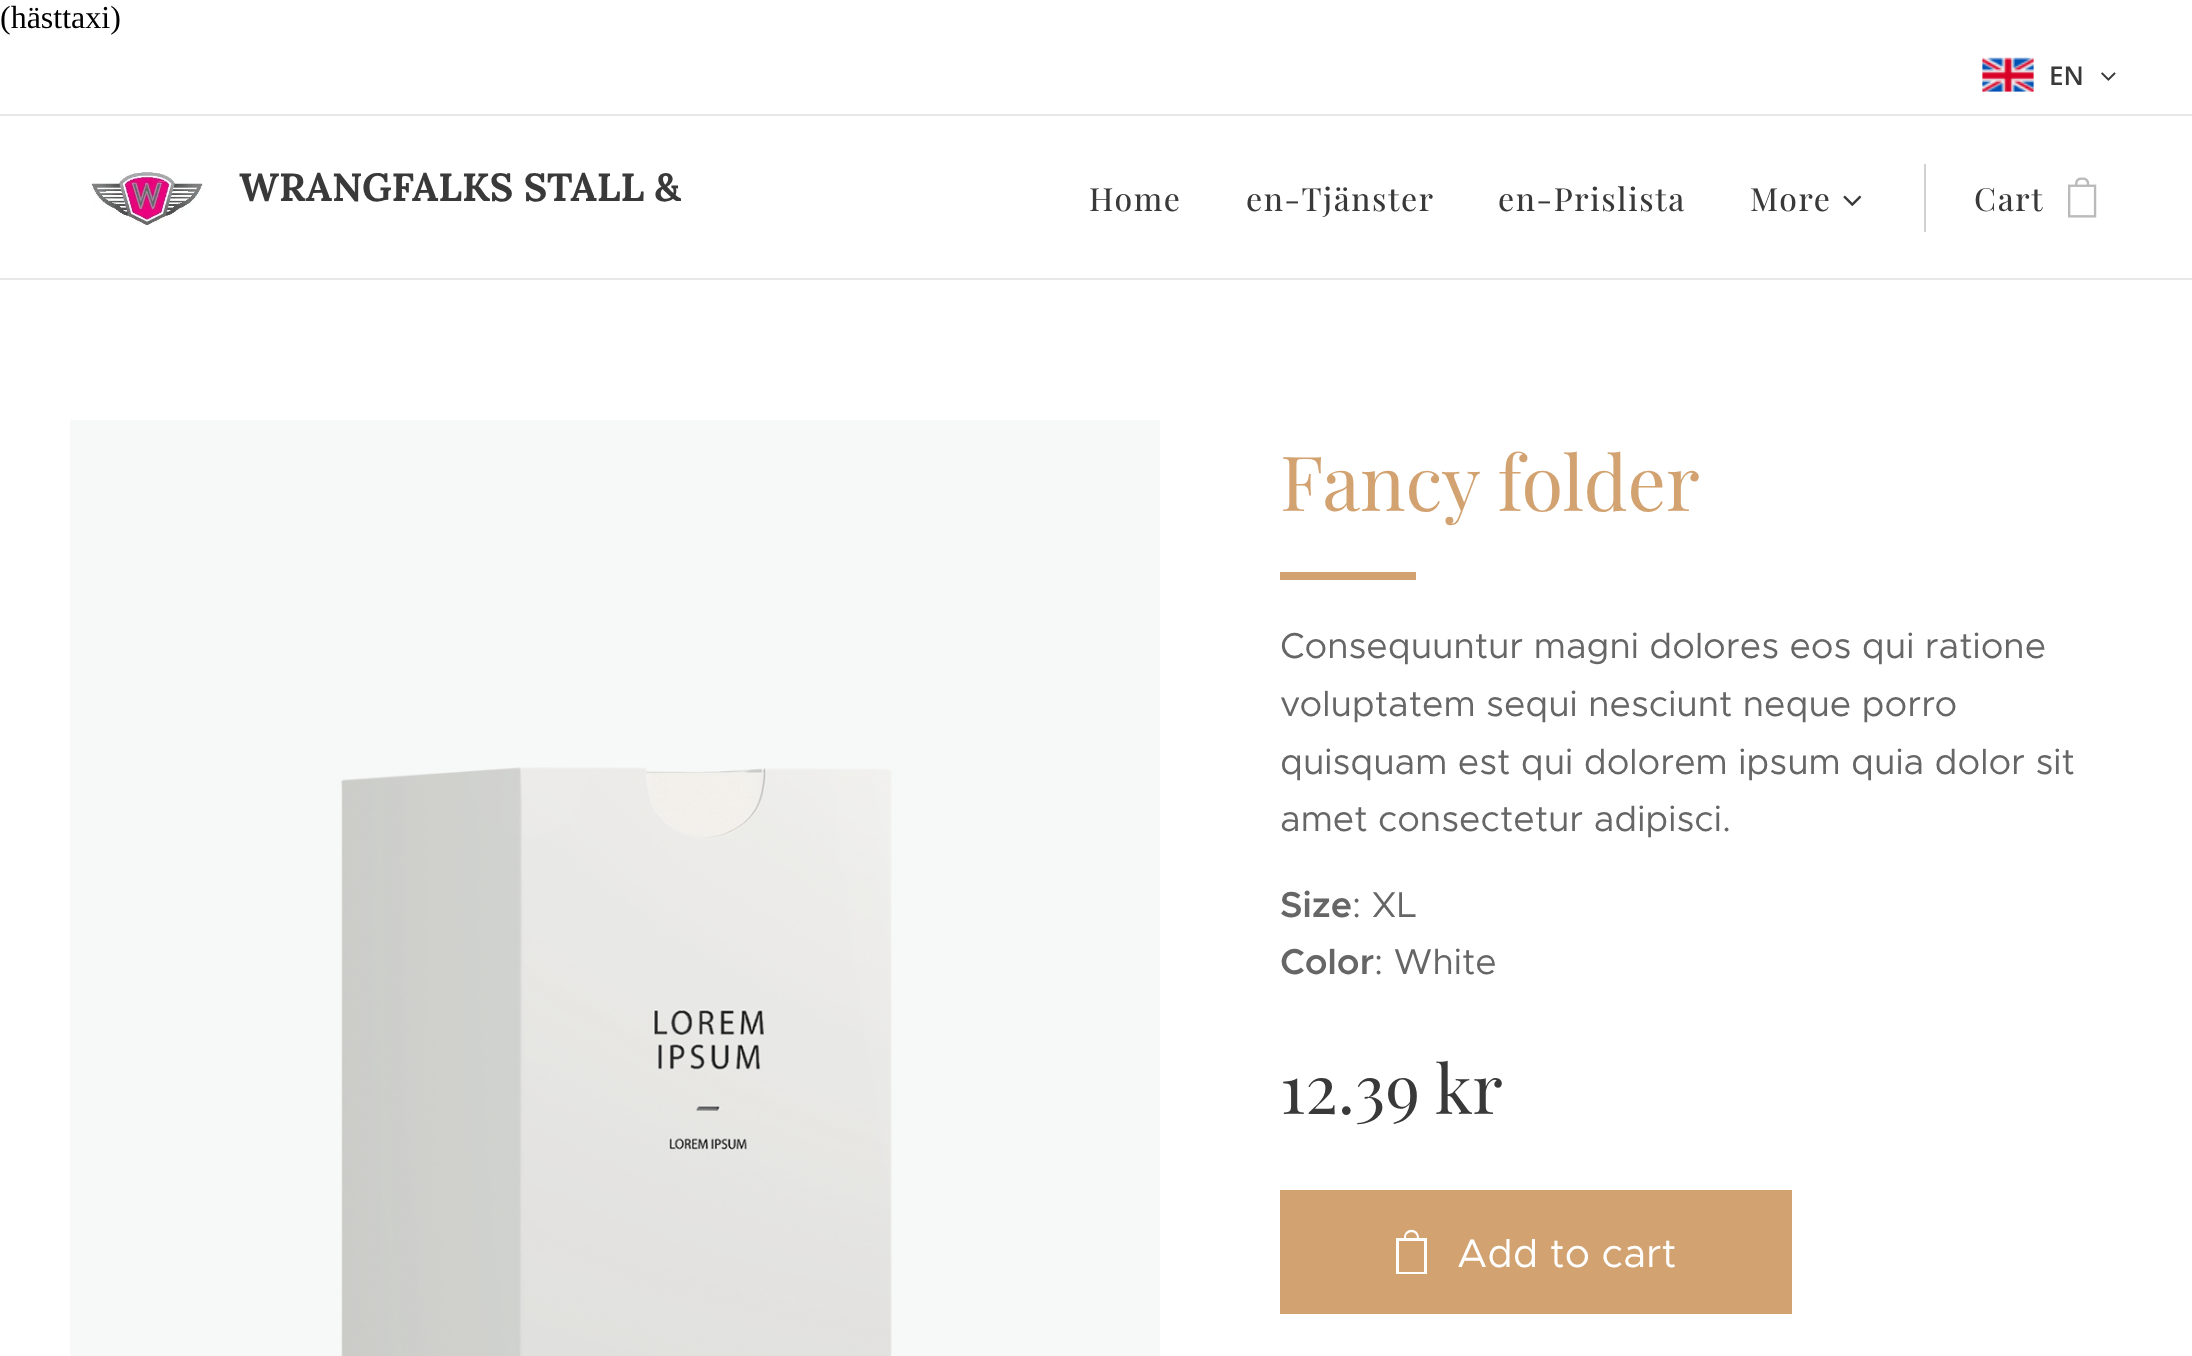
<svg xmlns="http://www.w3.org/2000/svg" width="2192" height="1356" viewBox="0 0 2192 1356">
  <style>
    .t1 { font: 32px Liberation Serif; fill: #000; }
    .t2 { font: 600 26px Open Sans; fill: #393939; }
    .t3 { font: bold 39.25px Lora; fill: #393939; }
    .t4 { font: 32px 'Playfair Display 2'; letter-spacing: 1.6px; fill: #393939; }
    .t5 { font: 76px Playfair Display; fill: #d2a270; }
    .t6 { font: 36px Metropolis; fill: #666; }
    .t7 { font: 600 36px Metropolis; fill: #666; }
    .t8 { font: 68px Playfair Display; fill: #393939; }
    .t9 { font: 40px Metropolis; fill: #fff; }
  </style>
  <rect width="100%" height="100%" fill="#fff"/>
  <text x="0" y="28" class="t1">(hästtaxi)</text>
  <image x="1982" y="57" width="52" height="35" href="images/1.png"/>
  <text x="2049" y="85" class="t2">EN</text>
  <image x="2101" y="72" width="15" height="9" href="images/2.png"/>
  <rect x="0" y="114" width="2192" height="2" fill="#e8e8e8"/>
  <image x="91" y="172" width="112" height="54" href="images/3.png"/>
  <text x="239" y="201" class="t3">WRANGFALKS STALL &amp;</text>
  <text x="1089" y="211" class="t4">Home</text>
  <text x="1246" y="211" class="t4">en-Tjänster</text>
  <text x="1498" y="211" class="t4">en-Prislista</text>
  <text x="1750" y="211" class="t4">More</text>
  <image x="1843" y="195" width="19" height="11" href="images/4.png"/>
  <rect x="1924" y="164" width="2" height="68" fill="#d1d1d1"/>
  <text x="1974" y="211" class="t4">Cart</text>
  <image x="2068" y="177" width="29" height="41" href="images/5.png"/>
  <rect x="0" y="278" width="2192" height="2" fill="#e8e8e8"/>
  <image x="70" y="420" width="1090" height="936" href="images/6.png"/>
  <text x="1280" y="511" class="t5">Fancy folder</text>
  <rect x="1280" y="572" width="136" height="8" fill="#d2a270"/>
  <text x="1280" y="658" class="t6">Consequuntur magni dolores eos qui ratione</text>
  <text x="1280" y="716" class="t6">voluptatem sequi nesciunt neque porro</text>
  <text x="1280" y="774" class="t6">quisquam est qui dolorem ipsum quia dolor sit</text>
  <text x="1280" y="831" class="t6">amet consectetur adipisci.</text>
  <text x="1280" y="917" class="t7">Size</text>
  <text x="1352" y="917" class="t6">: XL</text>
  <text x="1280" y="974" class="t7">Color</text>
  <text x="1374" y="974" class="t6">: White</text>
  <text x="1280" y="1114" class="t8">12.39 kr</text>
  <rect x="1280" y="1190" width="512" height="124" fill="#d2a270"/>
  <text x="1457" y="1267" class="t9">Add to cart</text>
  <path d="M1419 1238C1419 1227 1404 1227 1404 1238H1396V1274H1427V1238ZM1406 1237C1406 1231 1417 1230 1417 1238H1406ZM1424 1272H1399V1241H1424Z" fill="#fff"/>
</svg>
